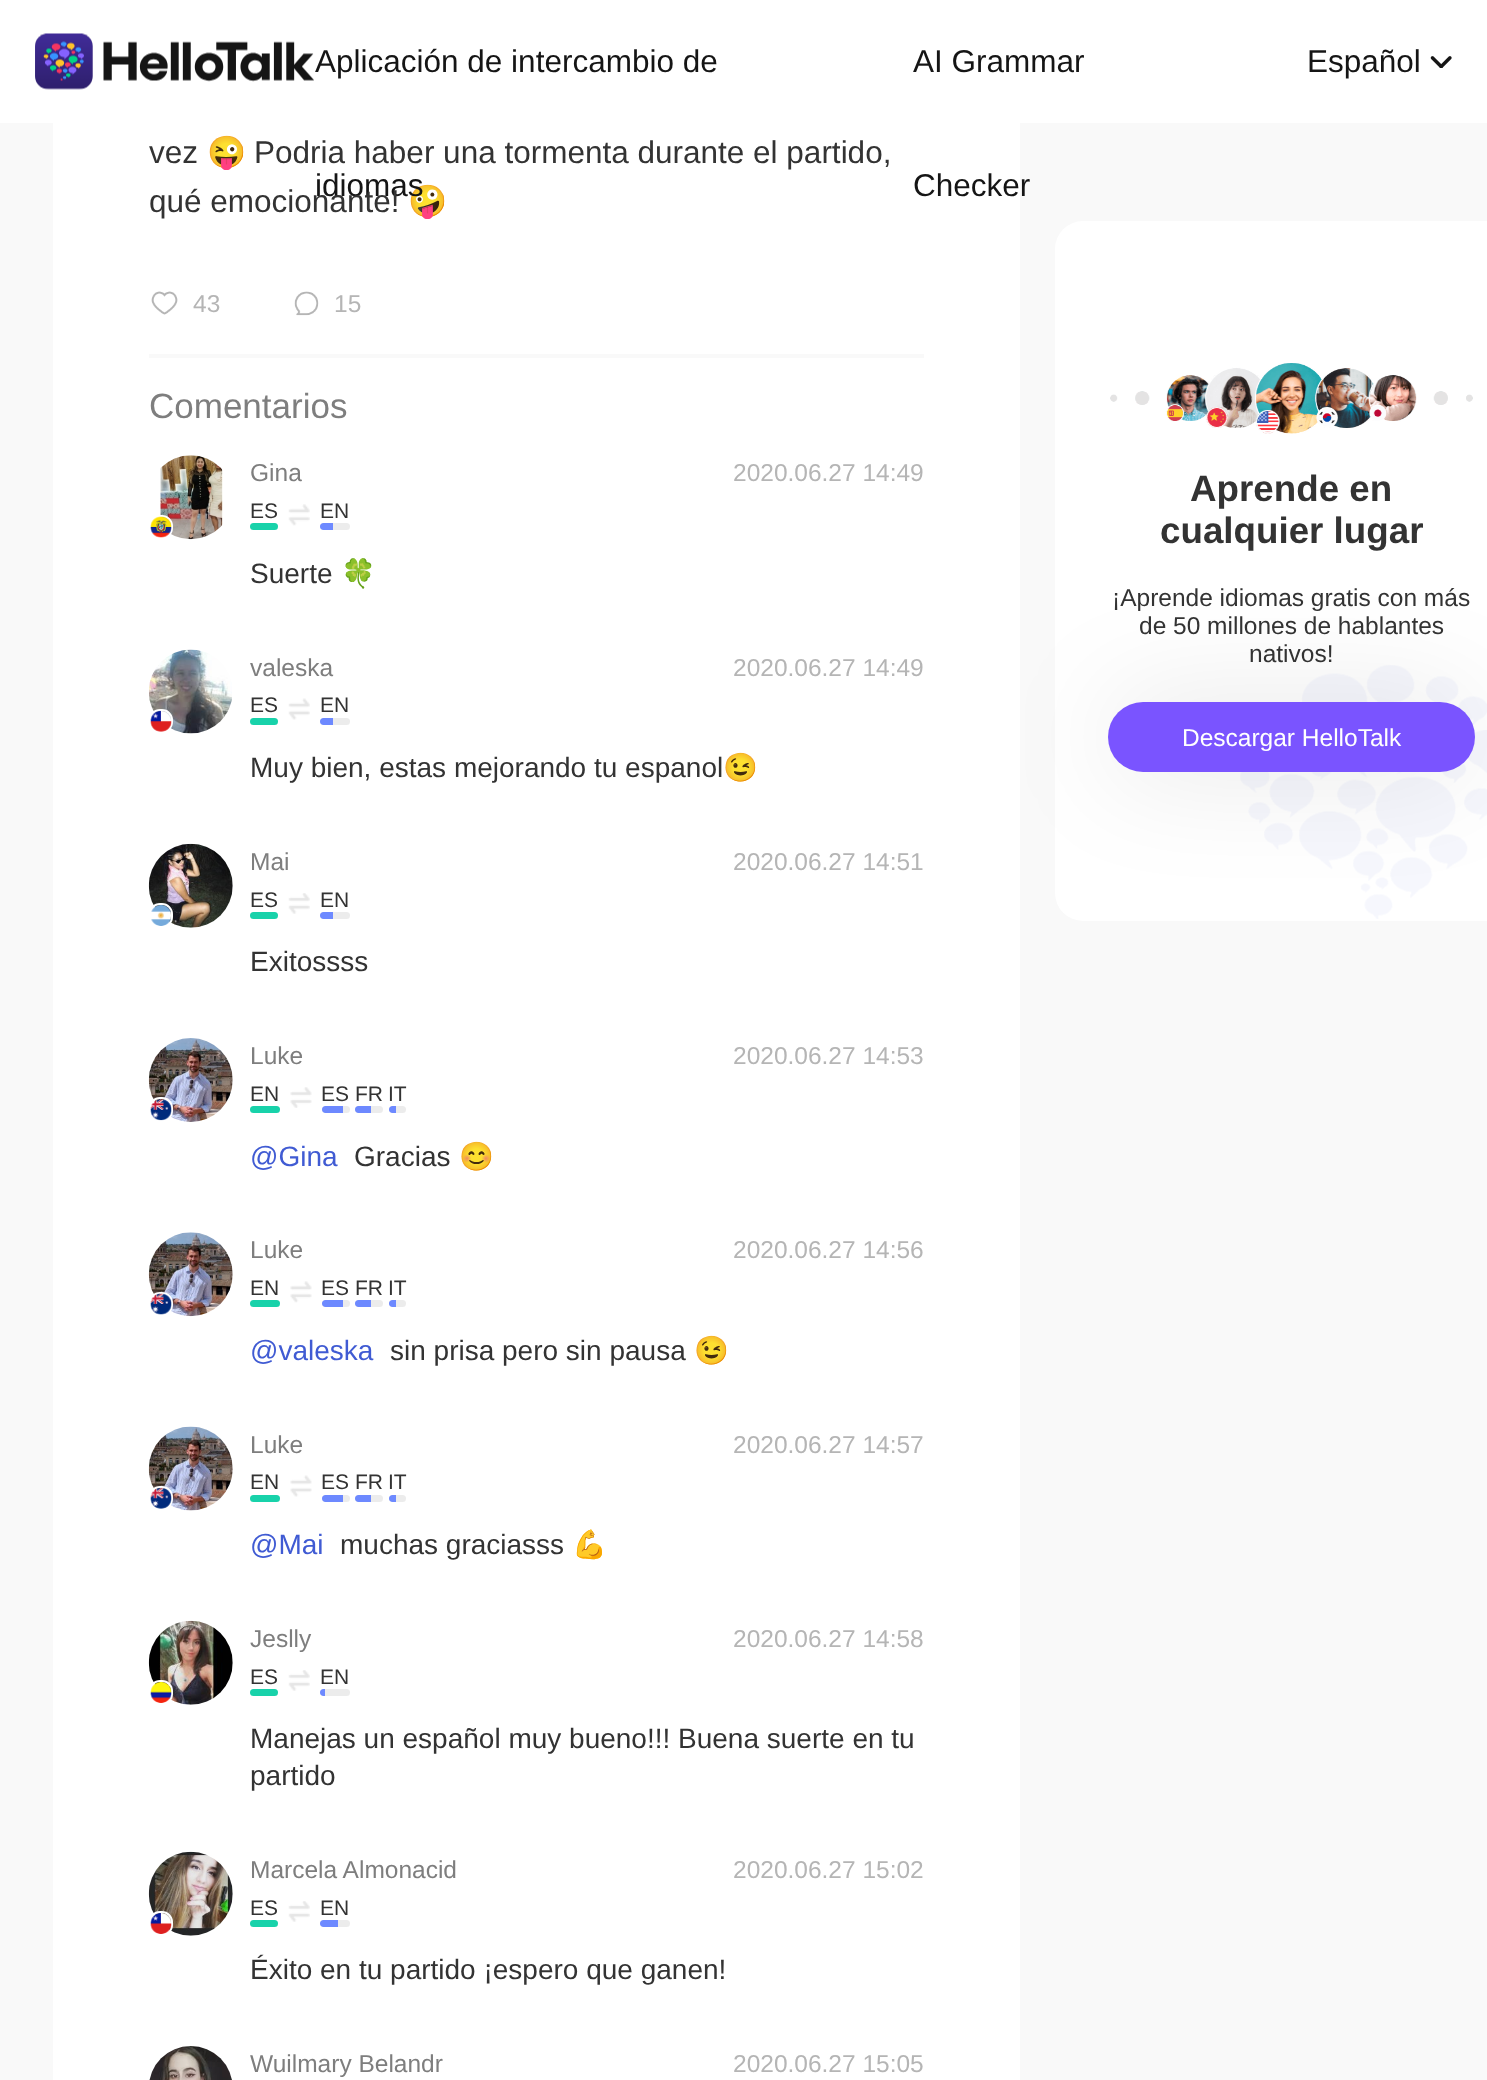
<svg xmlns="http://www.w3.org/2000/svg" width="1487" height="2080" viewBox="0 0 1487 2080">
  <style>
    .t1 { font: 31.5px Liberation Sans; fill: #151515; }
    .t2 { font: 31.5px Noto Color Emoji; fill: #333; }
    .t3 { font: 31.5px Liberation Sans; fill: #333; }
    .t4 { font: 24.5px Liberation Sans; fill: #b5b5b5; }
    .t5 { font: 35px Liberation Sans; fill: #7e7e7e; }
    .t6 { font: 24.5px Liberation Sans; fill: #7e7e7e; }
    .t7 { font: 21px Liberation Sans; fill: #333; }
    .t8 { font: 28px Liberation Sans; fill: #333; }
    .t9 { font: 28px Noto Color Emoji; fill: #333; }
    .t10 { font: 28px Liberation Sans; fill: #405bd3; }
    .t11 { font: bold 36.75px Liberation Sans; fill: #333; }
    .t12 { font: 24.5px Liberation Sans; fill: #333; }
    .t13 { font: 24.5px Liberation Sans; fill: #fff; }
  </style>
  <rect width="100%" height="100%" fill="#f9f9f9"/>
  <rect x="0" y="0" width="1487" height="123" fill="#fff"/>
  <image x="35" y="33" width="279" height="57" href="images/1.png"/>
  <text x="315" y="72" class="t1">Aplicación de intercambio de</text>
  <rect x="53" y="123" width="967" height="1957" fill="#fff"/>
  <text x="408" y="212" class="t2">🤪</text>
  <text x="315" y="196" class="t1">idiomas</text>
  <text x="913" y="72" class="t1">AI Grammar</text>
  <text x="913" y="196" class="t1">Checker</text>
  <text x="1307" y="72" class="t1">Español</text>
  <image x="1430" y="56" width="22" height="12" href="images/2.png"/>
  <rect x="149" y="354" width="775" height="4" fill="#f9f9f9"/>
  <text x="149" y="163" class="t3">vez</text>
  <text x="207" y="163" class="t2">😜</text>
  <text x="254" y="163" class="t3">Podria haber una tormenta durante el partido,</text>
  <text x="149" y="212" class="t3">qué emocionante!</text>
  <image x="151" y="291" width="27" height="24" href="images/3.png"/>
  <text x="193" y="312" class="t4">43</text>
  <image x="294" y="291" width="25" height="25" href="images/4.png"/>
  <text x="334" y="312" class="t4">15</text>
  <text x="149" y="418" class="t5">Comentarios</text>
  <image x="160" y="455" width="63" height="85" href="images/5.png"/>
  <rect x="150" y="516" width="22" height="22" rx="10" fill="none" stroke="#fff" stroke-width="2"/>
  <image x="150" y="516" width="22" height="22" href="images/6.png"/>
  <text x="250" y="481" class="t6">Gina</text>
  <text x="733" y="481" class="t4">2020.06.27 14:49</text>
  <text x="250" y="518" class="t7">ES</text>
  <rect x="250" y="523" width="28" height="7" rx="3.5" fill="#18d2aa"/>
  <image x="288" y="504" width="22" height="22" href="images/7.png"/>
  <text x="320" y="518" class="t7">EN</text>
  <rect x="320" y="523" width="30" height="7" rx="3.5" fill="#ececec"/>
  <path d="M323.5 523H333V530H323.5C321.5 530 320 528.5 320 526.5C320 524.5 321.5 523 323.5 523Z" fill="#6d89ff"/>
  <text x="250" y="583" class="t8">Suerte</text>
  <text x="341" y="583" class="t9">🍀</text>
  <image x="149" y="649" width="83" height="85" href="images/8.png"/>
  <rect x="150" y="710" width="22" height="22" rx="10" fill="none" stroke="#fff" stroke-width="2"/>
  <image x="150" y="710" width="22" height="22" href="images/9.png"/>
  <text x="250" y="676" class="t6">valeska</text>
  <text x="733" y="676" class="t4">2020.06.27 14:49</text>
  <text x="250" y="712" class="t7">ES</text>
  <rect x="250" y="718" width="28" height="7" rx="3.5" fill="#18d2aa"/>
  <image x="288" y="698" width="22" height="22" href="images/10.png"/>
  <text x="320" y="712" class="t7">EN</text>
  <rect x="320" y="718" width="30" height="7" rx="3.5" fill="#ececec"/>
  <path d="M323.5 718H333V725H323.5C321.5 725 320 723.5 320 721.5C320 719.5 321.5 718 323.5 718Z" fill="#6d89ff"/>
  <text x="250" y="777" class="t8">Muy bien, estas mejorando tu espanol</text>
  <text x="723" y="777" class="t9">😉</text>
  <image x="148" y="843" width="85" height="85" href="images/11.png"/>
  <rect x="150" y="904" width="22" height="23" rx="10" fill="none" stroke="#fff" stroke-width="2"/>
  <image x="151" y="905" width="20" height="21" href="images/12.png"/>
  <text x="250" y="870" class="t6">Mai</text>
  <text x="733" y="870" class="t4">2020.06.27 14:51</text>
  <text x="250" y="907" class="t7">ES</text>
  <rect x="250" y="912" width="28" height="7" rx="3.5" fill="#18d2aa"/>
  <image x="288" y="893" width="22" height="21" href="images/13.png"/>
  <text x="320" y="907" class="t7">EN</text>
  <rect x="320" y="912" width="30" height="7" rx="3.5" fill="#ececec"/>
  <path d="M323.5 912H333V919H323.5C321.5 919 320 917.5 320 915.5C320 913.5 321.5 912 323.5 912Z" fill="#6d89ff"/>
  <text x="250" y="971" class="t8">Exitossss</text>
  <image x="148" y="1038" width="85" height="84" href="images/14.png"/>
  <rect x="150" y="1098" width="22" height="23" rx="10" fill="none" stroke="#fff" stroke-width="2"/>
  <image x="150" y="1099" width="22" height="22" href="images/15.png"/>
  <text x="250" y="1064" class="t6">Luke</text>
  <text x="733" y="1064" class="t4">2020.06.27 14:53</text>
  <text x="250" y="1101" class="t7">EN</text>
  <rect x="250" y="1106" width="30" height="7" rx="3.5" fill="#18d2aa"/>
  <image x="290" y="1087" width="22" height="21" href="images/16.png"/>
  <text x="321" y="1101" class="t7">ES</text>
  <rect x="322" y="1106" width="28" height="7" rx="3.5" fill="#ececec"/>
  <path d="M325.5 1106H343V1113H325.5C323.5 1113 322 1111.5 322 1109.5C322 1107.5 323.5 1106 325.5 1106Z" fill="#6d89ff"/>
  <text x="355" y="1101" class="t7">FR</text>
  <rect x="355" y="1106" width="28" height="7" rx="3.5" fill="#ececec"/>
  <path d="M358.5 1106H371V1113H358.5C356.5 1113 355 1111.5 355 1109.5C355 1107.5 356.5 1106 358.5 1106Z" fill="#6d89ff"/>
  <text x="388" y="1101" class="t7">IT</text>
  <rect x="389" y="1106" width="17" height="7" rx="3.5" fill="#ececec"/>
  <path d="M392.5 1106H396V1113H392.5C390.5 1113 389 1111.5 389 1109.5C389 1107.5 390.5 1106 392.5 1106Z" fill="#6d89ff"/>
  <text x="250" y="1166" class="t10">@Gina</text>
  <text x="354" y="1166" class="t8">Gracias</text>
  <text x="459" y="1166" class="t9">😊</text>
  <image x="148" y="1232" width="85" height="85" href="images/17.png"/>
  <rect x="150" y="1293" width="22" height="22" rx="10" fill="none" stroke="#fff" stroke-width="2"/>
  <image x="150" y="1293" width="22" height="22" href="images/18.png"/>
  <text x="250" y="1258" class="t6">Luke</text>
  <text x="733" y="1258" class="t4">2020.06.27 14:56</text>
  <text x="250" y="1295" class="t7">EN</text>
  <rect x="250" y="1300" width="30" height="7" rx="3.5" fill="#18d2aa"/>
  <image x="290" y="1281" width="22" height="22" href="images/19.png"/>
  <text x="321" y="1295" class="t7">ES</text>
  <rect x="322" y="1300" width="28" height="7" rx="3.5" fill="#ececec"/>
  <path d="M325.5 1300H343V1307H325.5C323.5 1307 322 1305.5 322 1303.5C322 1301.5 323.5 1300 325.5 1300Z" fill="#6d89ff"/>
  <text x="355" y="1295" class="t7">FR</text>
  <rect x="355" y="1300" width="28" height="7" rx="3.5" fill="#ececec"/>
  <path d="M358.5 1300H371V1307H358.5C356.5 1307 355 1305.5 355 1303.5C355 1301.5 356.5 1300 358.5 1300Z" fill="#6d89ff"/>
  <text x="388" y="1295" class="t7">IT</text>
  <rect x="389" y="1300" width="17" height="7" rx="3.5" fill="#ececec"/>
  <path d="M392.5 1300H396V1307H392.5C390.5 1307 389 1305.5 389 1303.5C389 1301.5 390.5 1300 392.5 1300Z" fill="#6d89ff"/>
  <text x="250" y="1360" class="t10">@valeska</text>
  <text x="390" y="1360" class="t8">sin prisa pero sin pausa</text>
  <text x="694" y="1360" class="t9">😉</text>
  <image x="148" y="1426" width="85" height="85" href="images/20.png"/>
  <rect x="150" y="1487" width="22" height="22" rx="10" fill="none" stroke="#fff" stroke-width="2"/>
  <image x="150" y="1487" width="22" height="22" href="images/21.png"/>
  <text x="250" y="1453" class="t6">Luke</text>
  <text x="733" y="1453" class="t4">2020.06.27 14:57</text>
  <text x="250" y="1489" class="t7">EN</text>
  <rect x="250" y="1495" width="30" height="7" rx="3.5" fill="#18d2aa"/>
  <image x="290" y="1475" width="22" height="22" href="images/22.png"/>
  <text x="321" y="1489" class="t7">ES</text>
  <rect x="322" y="1495" width="28" height="7" rx="3.5" fill="#ececec"/>
  <path d="M325.5 1495H343V1502H325.5C323.5 1502 322 1500.5 322 1498.5C322 1496.5 323.5 1495 325.5 1495Z" fill="#6d89ff"/>
  <text x="355" y="1489" class="t7">FR</text>
  <rect x="355" y="1495" width="28" height="7" rx="3.5" fill="#ececec"/>
  <path d="M358.5 1495H371V1502H358.5C356.5 1502 355 1500.5 355 1498.5C355 1496.5 356.5 1495 358.5 1495Z" fill="#6d89ff"/>
  <text x="388" y="1489" class="t7">IT</text>
  <rect x="389" y="1495" width="17" height="7" rx="3.5" fill="#ececec"/>
  <path d="M392.5 1495H396V1502H392.5C390.5 1502 389 1500.5 389 1498.5C389 1496.5 390.5 1495 392.5 1495Z" fill="#6d89ff"/>
  <text x="250" y="1554" class="t10">@Mai</text>
  <text x="340" y="1554" class="t8">muchas graciasss</text>
  <text x="572" y="1554" class="t9">💪</text>
  <image x="148" y="1620" width="85" height="85" href="images/23.png"/>
  <rect x="150" y="1681" width="22" height="23" rx="10" fill="none" stroke="#fff" stroke-width="2"/>
  <image x="150" y="1682" width="22" height="21" href="images/24.png"/>
  <text x="250" y="1647" class="t6">Jeslly</text>
  <text x="733" y="1647" class="t4">2020.06.27 14:58</text>
  <text x="250" y="1684" class="t7">ES</text>
  <rect x="250" y="1689" width="28" height="7" rx="3.5" fill="#18d2aa"/>
  <image x="288" y="1670" width="22" height="21" href="images/13.png"/>
  <text x="320" y="1684" class="t7">EN</text>
  <rect x="320" y="1689" width="30" height="7" rx="3.5" fill="#ececec"/>
  <path d="M323.5 1689H325V1696H323.5C321.5 1696 320 1694.5 320 1692.5C320 1690.5 321.5 1689 323.5 1689Z" fill="#6d89ff"/>
  <text x="250" y="1748" class="t8">Manejas un español muy bueno!!! Buena suerte en tu</text>
  <text x="250" y="1785" class="t8">partido</text>
  <image x="148" y="1851" width="85" height="85" href="images/25.png"/>
  <rect x="150" y="1912" width="22" height="23" rx="10" fill="none" stroke="#fff" stroke-width="2"/>
  <image x="150" y="1913" width="22" height="21" href="images/26.png"/>
  <text x="250" y="1878" class="t6">Marcela Almonacid</text>
  <text x="733" y="1878" class="t4">2020.06.27 15:02</text>
  <text x="250" y="1915" class="t7">ES</text>
  <rect x="250" y="1920" width="28" height="7" rx="3.5" fill="#18d2aa"/>
  <image x="288" y="1901" width="22" height="21" href="images/13.png"/>
  <text x="320" y="1915" class="t7">EN</text>
  <rect x="320" y="1920" width="30" height="7" rx="3.5" fill="#ececec"/>
  <path d="M323.5 1920H338V1927H323.5C321.5 1927 320 1925.5 320 1923.5C320 1921.5 321.5 1920 323.5 1920Z" fill="#6d89ff"/>
  <text x="250" y="1979" class="t8">Éxito en tu partido ¡espero que ganen!</text>
  <image x="149" y="2046" width="83" height="34" href="images/27.png"/>
  <text x="250" y="2072" class="t6">Wuilmary Belandr</text>
  <text x="733" y="2072" class="t4">2020.06.27 15:05</text>
  <rect x="1055" y="221" width="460" height="700" rx="28" fill="#fff"/>
  <image x="1240" y="665" width="247" height="254" href="images/28.png"/>
  <image x="1110" y="363" width="363" height="71" href="images/29.png"/>
  <text x="1190" y="501" class="t11">Aprende en</text>
  <rect x="1108" y="702" width="367" height="70" rx="35" fill="#0000001a" filter="blur(56px)"/>
  <text x="1160" y="543" class="t11">cualquier lugar</text>
  <text x="1112" y="606" class="t12">¡Aprende idiomas gratis con más</text>
  <text x="1139" y="634" class="t12">de 50 millones de hablantes</text>
  <text x="1249" y="662" class="t12">nativos!</text>
  <rect x="1108" y="702" width="367" height="70" rx="35" fill="#7a54ff"/>
  <text x="1182" y="746" class="t13">Descargar HelloTalk</text>
</svg>
